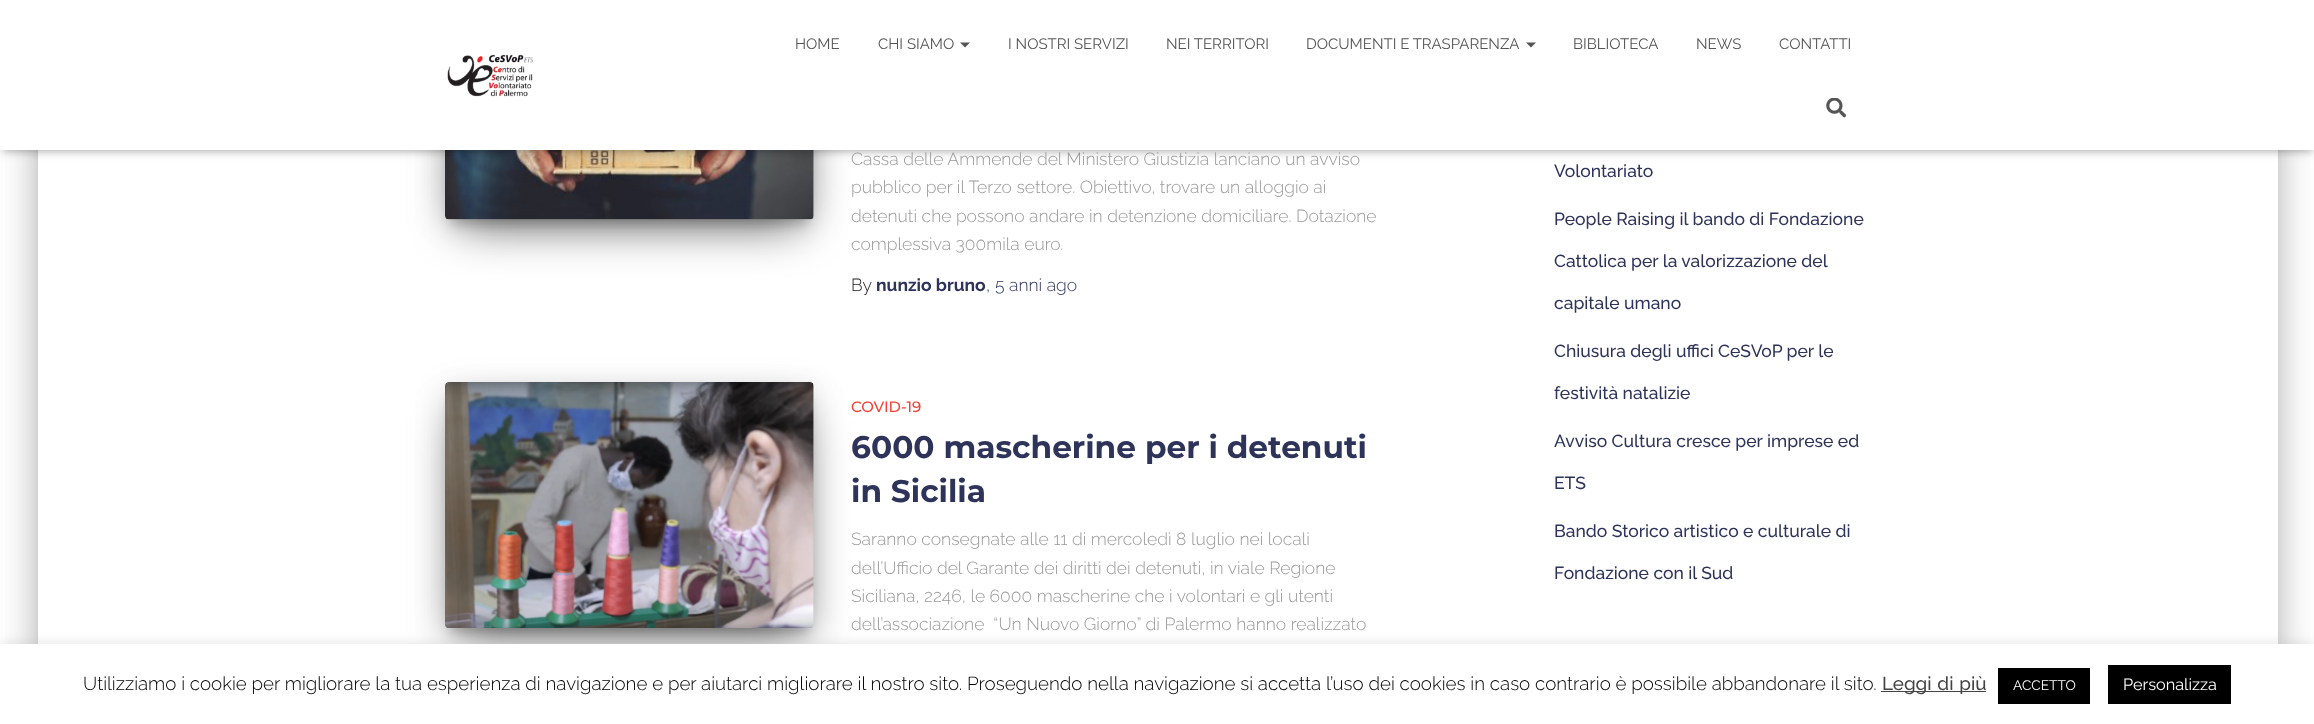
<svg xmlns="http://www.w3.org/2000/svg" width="2314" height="724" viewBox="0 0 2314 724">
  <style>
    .t1 { font: 15px Raleway; fill: #555; }
    .t2 { font: 300 17.5px Raleway; fill: #999; }
    .t3 { font: 300 17.5px Raleway; fill: #212121; }
    .t4 { font: bold 17.5px Raleway; fill: #2d3359; }
    .t5 { font: 300 17.5px Raleway; fill: #2d3359; }
    .t6 { font: 500 15px Montserrat; fill: #f44336; }
    .t7 { font: bold 31.25px Montserrat; fill: #2d3359; }
    .t8 { font: 500 17.5px Raleway; fill: #2d3359; }
    .t9 { font: 300 18.75px Raleway; fill: #000; }
    .t10 { font: 500 18.75px Raleway; fill: #444; }
    .t11 { font: 13.75px Raleway; fill: #fff; }
    .t12 { font: 16.25px Raleway; fill: #fff; }
  </style>
  <rect width="100%" height="100%" fill="#fff"/>
  <rect x="44" y="-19" width="2227" height="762" rx="1" fill="#00000033" filter="blur(6px)"/>
  <rect x="31" y="-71" width="2253" height="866" rx="14" fill="#0000001f" filter="blur(19px)"/>
  <rect x="35" y="-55" width="2245" height="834" rx="10" fill="#00000024" filter="blur(15px)"/>
  <rect x="38" y="150" width="2240" height="494" fill="#fff"/>
  <rect x="451" y="-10" width="357" height="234" fill="#00000033" filter="blur(6px)"/>
  <rect x="445" y="-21" width="369" height="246" rx="4" fill="#0000001f" filter="blur(15.5px)"/>
  <rect x="460" y="9" width="339" height="216" fill="#0000008f" filter="blur(24px)"/>
  <image x="445" y="150" width="369" height="70" href="images/3.png"/>
  <rect x="3" y="8" width="2310" height="145" fill="#0000001a" filter="blur(3px)"/>
  <rect x="0" y="1" width="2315" height="150" fill="#0000001f" filter="blur(6px)"/>
  <rect x="8" y="9" width="2300" height="135" fill="#0000006b" filter="blur(6px)"/>
  <rect x="0" y="0" width="2314" height="150" fill="#fff"/>
  <text x="795" y="49" class="t1">HOME</text>
  <text x="878" y="49" class="t1">CHI SIAMO</text>
  <path d="M960 42.5H970L965 47.5Z" fill="#555"/>
  <text x="1008" y="49" class="t1">I NOSTRI SERVIZI</text>
  <text x="1166" y="49" class="t1">NEI TERRITORI</text>
  <text x="1306" y="49" class="t1">DOCUMENTI E TRASPARENZA</text>
  <path d="M1526 42.5H1536L1531 47.5Z" fill="#555"/>
  <text x="1573" y="49" class="t1">BIBLIOTECA</text>
  <text x="1696" y="49" class="t1">NEWS</text>
  <text x="1779" y="49" class="t1">CONTATTI</text>
  <image x="1826" y="98" width="20" height="20" href="images/1.png"/>
  <image x="447" y="54" width="86" height="43" href="images/2.png"/>
  <text x="851" y="165" class="t2">Cassa delle Ammende del Ministero Giustizia lanciano un avviso</text>
  <text x="851" y="193" class="t2">pubblico per il Terzo settore. Obiettivo, trovare un alloggio ai</text>
  <text x="851" y="222" class="t2">detenuti che possono andare in detenzione domiciliare. Dotazione</text>
  <text x="851" y="250" class="t2">complessiva 300mila euro.</text>
  <text x="851" y="291" class="t3">By</text>
  <text x="876" y="291" class="t4">nunzio bruno</text>
  <text x="986" y="291" class="t3">,</text>
  <text x="995" y="291" class="t5">5 anni ago</text>
  <rect x="451" y="399" width="357" height="234" fill="#00000033" filter="blur(6px)"/>
  <rect x="445" y="388" width="369" height="246" rx="4" fill="#0000001f" filter="blur(15.5px)"/>
  <rect x="460" y="418" width="339" height="216" fill="#0000008f" filter="blur(24px)"/>
  <image x="445" y="382" width="369" height="246" href="images/4.png"/>
  <text x="851" y="412" class="t6">COVID-19</text>
  <text x="851" y="458" class="t7">6000 mascherine per i detenuti</text>
  <text x="851" y="502" class="t7">in Sicilia</text>
  <text x="851" y="545" class="t2">Saranno consegnate alle 11 di mercoledì 8 luglio nei locali</text>
  <text x="851" y="574" class="t2">dell’Ufficio del Garante dei diritti dei detenuti, in viale Regione</text>
  <text x="851" y="602" class="t2">Siciliana, 2246, le 6000 mascherine che i volontari e gli utenti</text>
  <text x="851" y="630" class="t2" xml:space="preserve">dell’associazione  “Un Nuovo Giorno” di Palermo hanno realizzato</text>
  <text x="1554" y="177" class="t8">Volontariato</text>
  <text x="1554" y="225" class="t8">People Raising il bando di Fondazione</text>
  <text x="1554" y="267" class="t8">Cattolica per la valorizzazione del</text>
  <text x="1554" y="309" class="t8">capitale umano</text>
  <text x="1554" y="357" class="t8">Chiusura degli uffici CeSVoP per le</text>
  <text x="1554" y="399" class="t8">festività natalizie</text>
  <text x="1554" y="447" class="t8">Avviso Cultura cresce per imprese ed</text>
  <text x="1554" y="489" class="t8">ETS</text>
  <text x="1554" y="537" class="t8">Bando Storico artistico e culturale di</text>
  <text x="1554" y="579" class="t8">Fondazione con il Sud</text>
  <rect x="0" y="643" width="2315" height="81" fill="#acabab4d" filter="blur(6px)"/>
  <rect x="0" y="644" width="2314" height="80" fill="#fff"/>
  <text x="83" y="690" class="t9">Utilizziamo i cookie per migliorare la tua esperienza di navigazione e per aiutarci migliorare il nostro sito. Proseguendo nella navigazione si accetta l’uso dei cookies in caso contrario è possibile abbandonare il sito.</text>
  <rect x="1881" y="691" width="105" height="1" fill="#444"/>
  <text x="1882" y="690" word-spacing="1" class="t10">Leggi di più</text>
  <rect x="1998" y="668" width="92" height="36" fill="#000"/>
  <text x="2013" y="690" class="t11">ACCETTO</text>
  <rect x="2108" y="665" width="123" height="39" fill="#000"/>
  <text x="2123" y="690" class="t12">Personalizza</text>
</svg>
